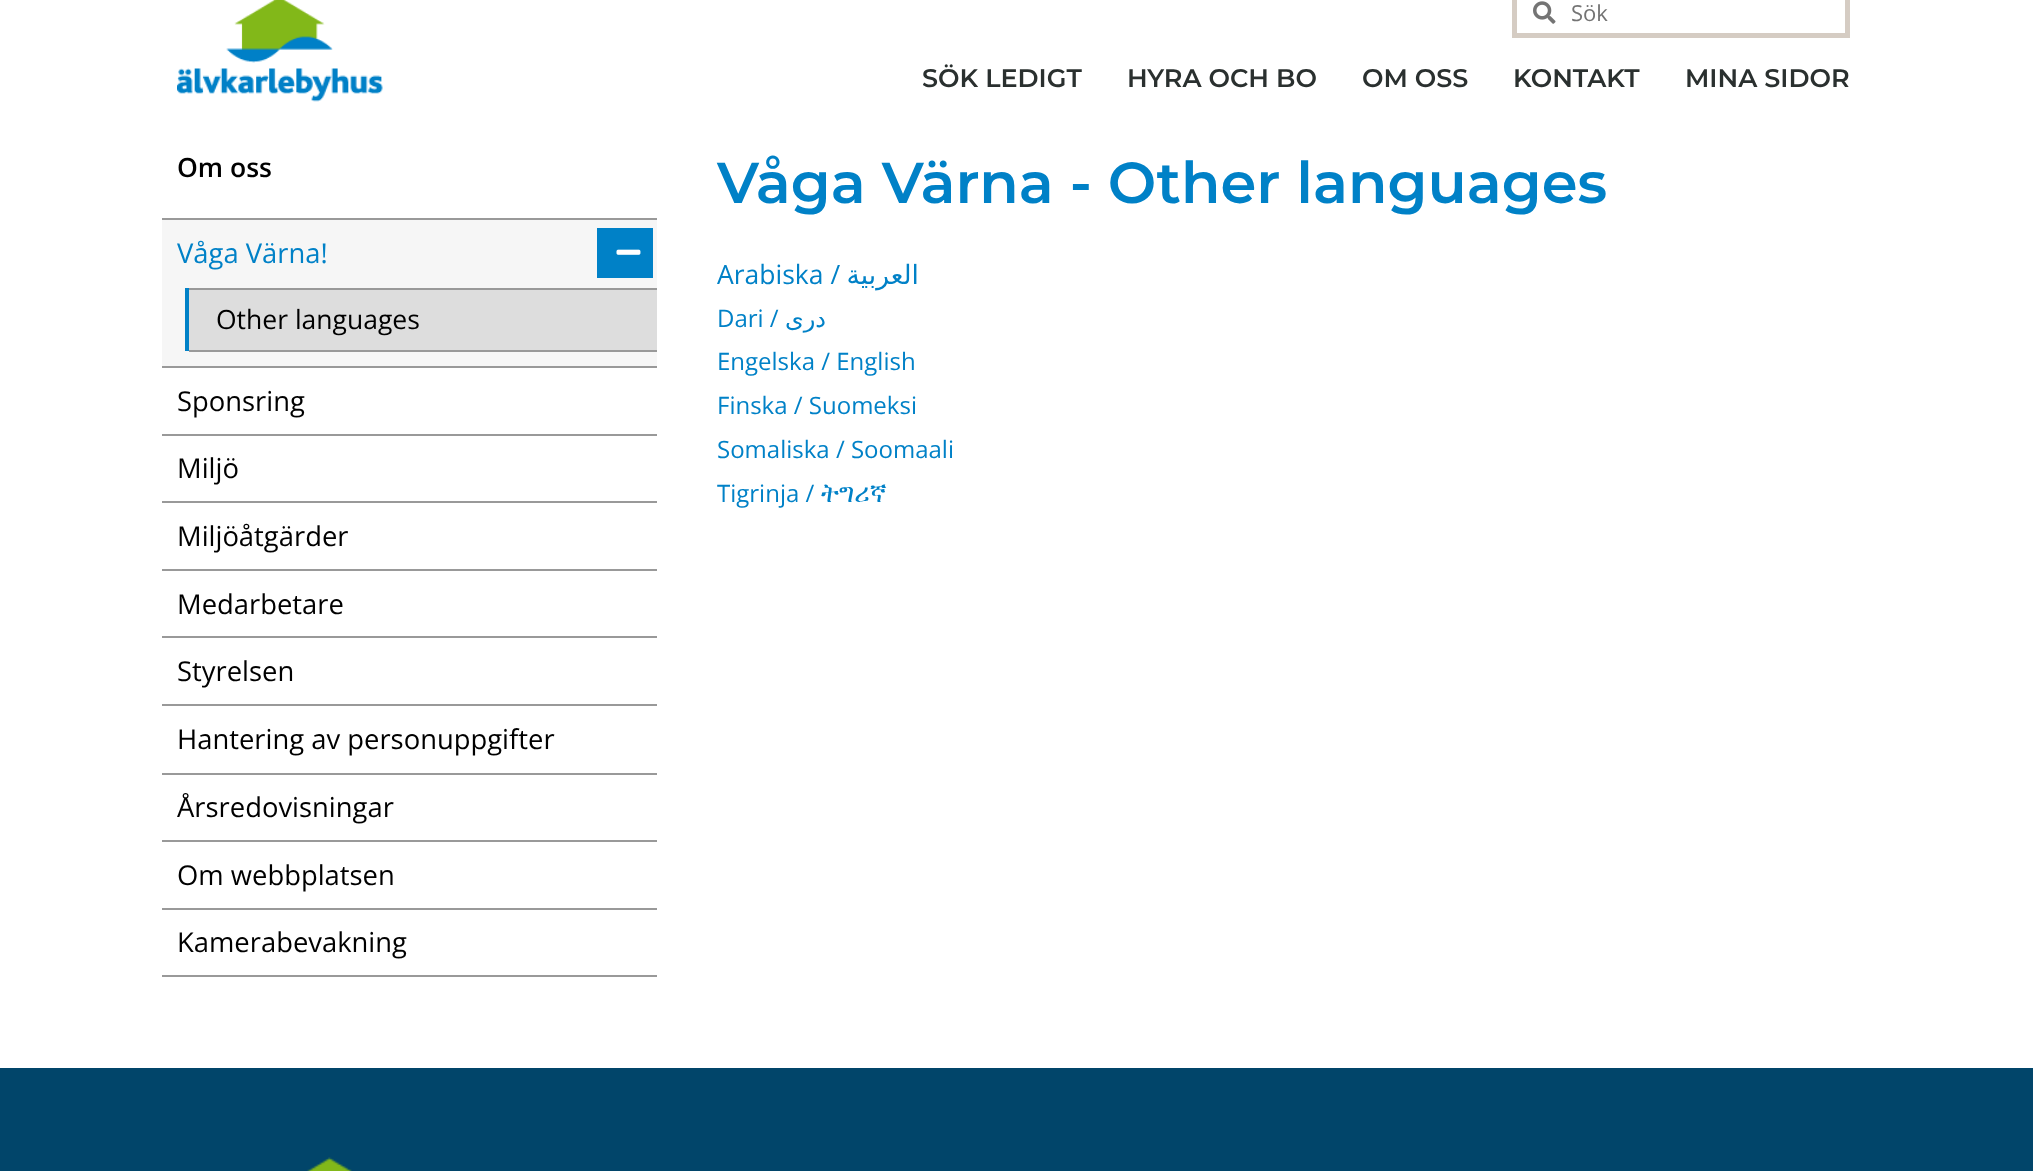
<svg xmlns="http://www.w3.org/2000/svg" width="2033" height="1171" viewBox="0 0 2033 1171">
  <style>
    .t1 { font: 22px Open Sans; fill: #747474; }
    .t2 { font: 600 25.5px Montserrat; fill: #2a302f; }
    .t3 { font: 600 26.5px Open Sans; fill: #000; }
    .t4 { font: 27.4px Open Sans; fill: #0081c7; }
    .t5 { font: 26.5px Open Sans; fill: #000; }
    .t6 { font: 27.4px Open Sans; fill: #000; }
    .t7 { font: 600 57.6px Montserrat; fill: #0081c7; }
    .t8 { font: 26.5px Open Sans; fill: #0081c7; }
    .t9 { font: 26.5px DejaVu Sans; direction: rtl; fill: #0081c7; }
    .t10 { font: 24px Open Sans; fill: #0081c7; }
    .t11 { font: 24px DejaVu Sans; direction: rtl; fill: #0081c7; }
    .t12 { font: 26.5px FreeSerif; fill: #0081c7; }
  </style>
  <rect width="100%" height="100%" fill="#fff"/>
  <image x="177" y="0" width="206" height="102" href="images/1.png"/>
  <rect x="1514.5" y="-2.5" width="333" height="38" fill="none" stroke="#d5ccc3" stroke-width="5"/>
  <image x="1533" y="1" width="23" height="23" href="images/2.png"/>
  <text x="1571" y="21" class="t1">Sök</text>
  <text x="922" y="87" class="t2">SÖK LEDIGT</text>
  <text x="1127" y="87" class="t2">HYRA OCH BO</text>
  <text x="1362" y="87" class="t2">OM OSS</text>
  <text x="1513" y="87" class="t2">KONTAKT</text>
  <text x="1685" y="87" class="t2">MINA SIDOR</text>
  <text x="177" y="177" class="t3">Om oss</text>
  <rect x="162" y="220" width="495" height="146" fill="#f6f6f6"/>
  <rect x="162" y="218" width="495" height="2" fill="#999"/>
  <text x="177" y="263" class="t4">Våga Värna!</text>
  <rect x="597" y="228" width="56" height="50" fill="#0081c7"/>
  <image x="616" y="249" width="25" height="6" href="images/3.png"/>
  <rect x="185" y="288" width="4" height="63" fill="#0081c7"/>
  <rect x="189" y="290" width="468" height="60" fill="#ddd"/>
  <rect x="189" y="288" width="468" height="2" fill="#999"/>
  <rect x="189" y="350" width="468" height="2" fill="#999"/>
  <text x="216" y="329" class="t5">Other languages</text>
  <rect x="162" y="366" width="495" height="2" fill="#999"/>
  <text x="177" y="411" class="t6">Sponsring</text>
  <rect x="162" y="434" width="495" height="2" fill="#999"/>
  <text x="177" y="478" class="t6">Miljö</text>
  <rect x="162" y="501" width="495" height="2" fill="#999"/>
  <text x="177" y="546" class="t6">Miljöåtgärder</text>
  <rect x="162" y="569" width="495" height="2" fill="#999"/>
  <text x="177" y="614" class="t6">Medarbetare</text>
  <rect x="162" y="636" width="495" height="2" fill="#999"/>
  <text x="177" y="681" class="t6">Styrelsen</text>
  <rect x="162" y="704" width="495" height="2" fill="#999"/>
  <text x="177" y="749" class="t6">Hantering av personuppgifter</text>
  <rect x="162" y="773" width="495" height="2" fill="#999"/>
  <text x="177" y="817" class="t6">Årsredovisningar</text>
  <rect x="162" y="840" width="495" height="2" fill="#999"/>
  <text x="177" y="885" class="t6">Om webbplatsen</text>
  <rect x="162" y="908" width="495" height="2" fill="#999"/>
  <rect x="162" y="975" width="495" height="2" fill="#999"/>
  <text x="177" y="952" class="t6">Kamerabevakning</text>
  <text x="717" y="203" class="t7">Våga Värna - Other languages</text>
  <text x="717" y="284" class="t8">Arabiska /</text>
  <text x="919" y="284" class="t9">العربية</text>
  <text x="717" y="327" class="t10">Dari /</text>
  <text x="826" y="327" class="t11">دری</text>
  <text x="717" y="370" class="t10">Engelska / English</text>
  <text x="717" y="414" class="t10">Finska / Suomeksi</text>
  <text x="717" y="458" class="t10">Somaliska / Soomaali</text>
  <text x="717" y="502" class="t10">Tigrinja /</text>
  <text x="821" y="502" class="t12">ትግሪኛ</text>
  <rect x="0" y="1068" width="2033" height="103" fill="#01456a"/>
  <image x="307" y="1157" width="45" height="14" href="images/4.png"/>
</svg>
